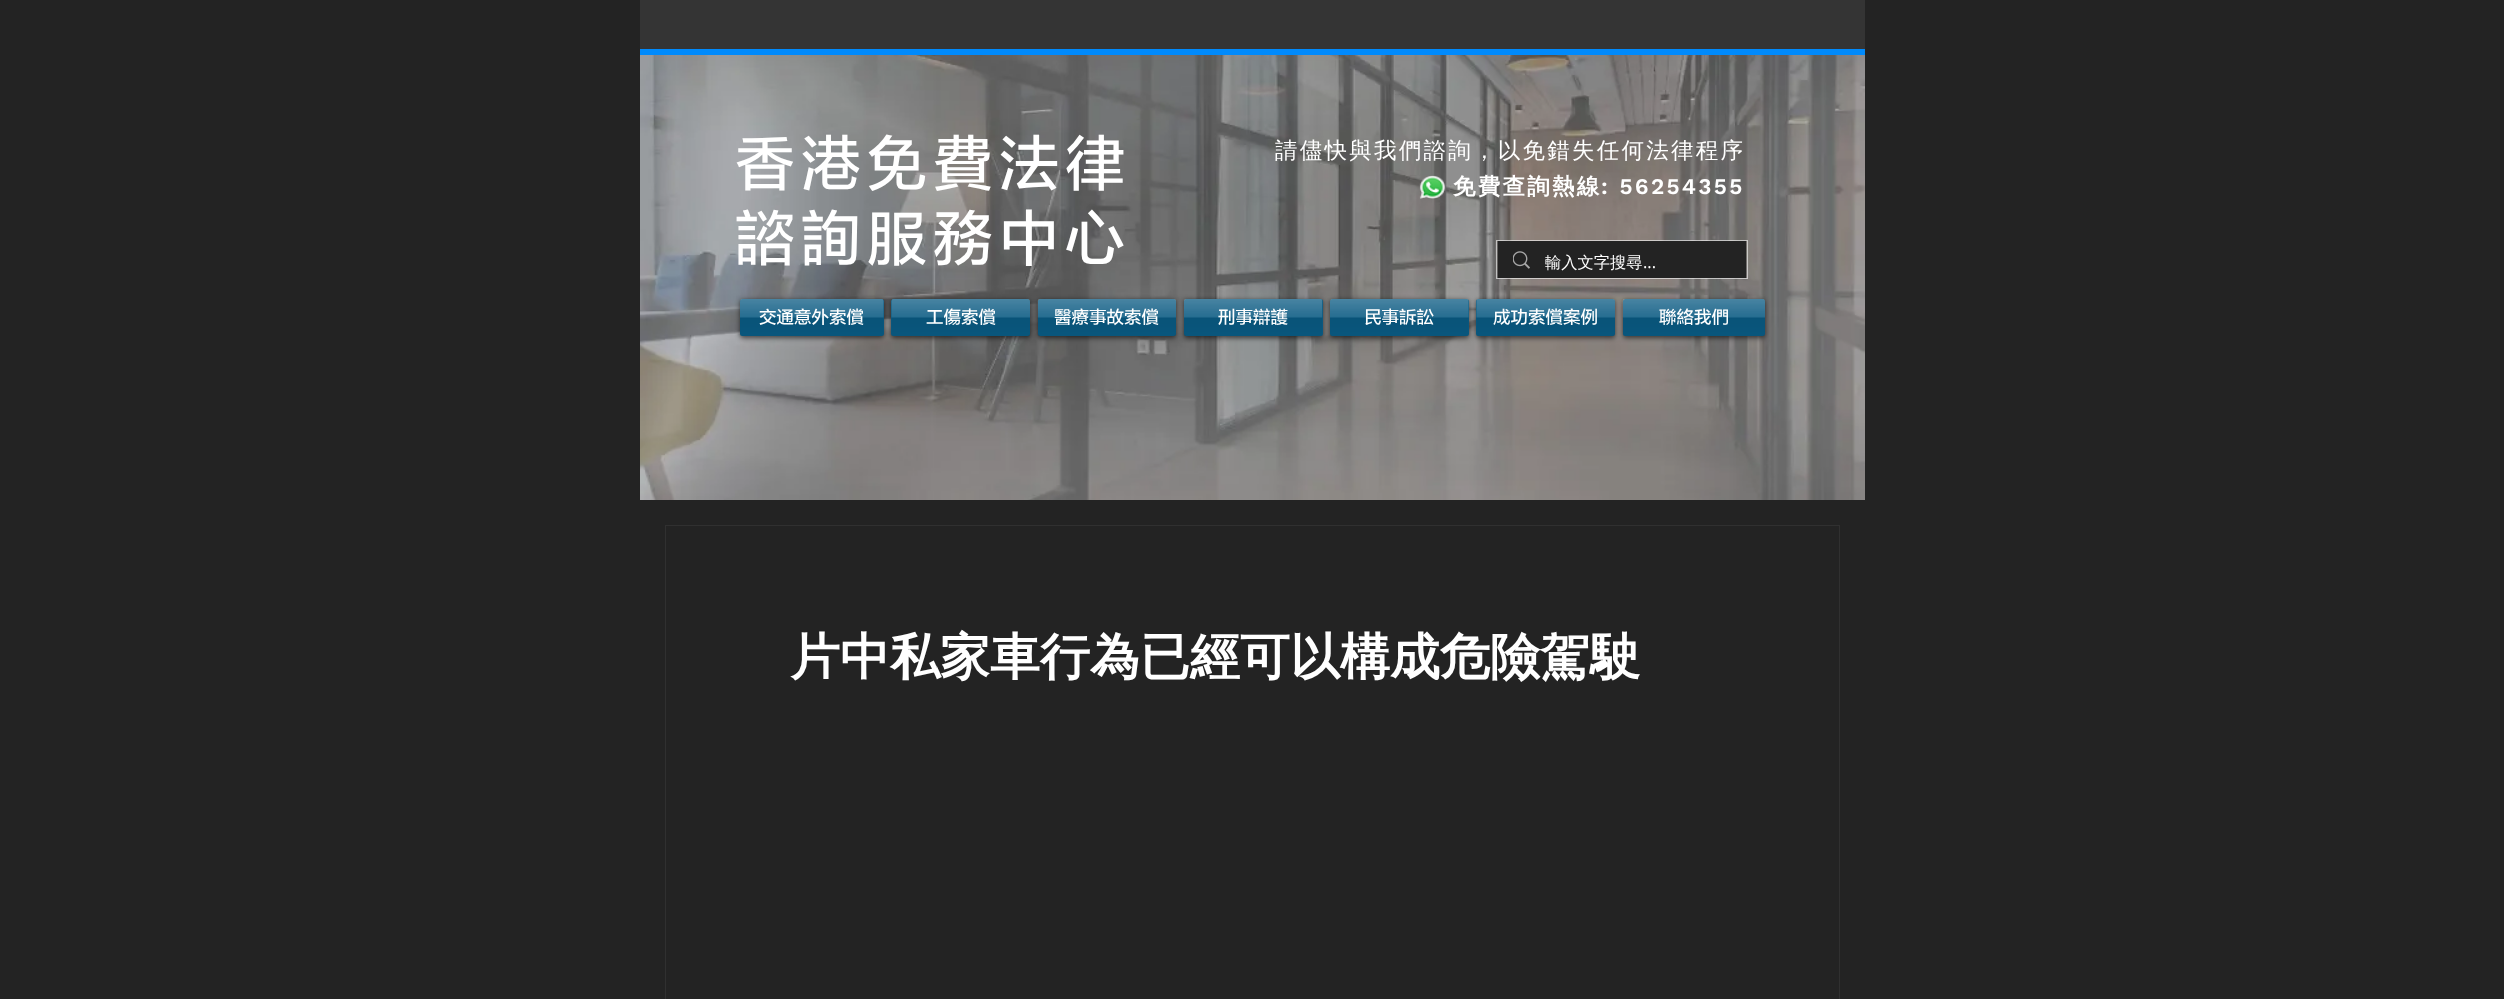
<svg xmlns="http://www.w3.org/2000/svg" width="2504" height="999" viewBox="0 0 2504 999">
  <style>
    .t1 { font: 60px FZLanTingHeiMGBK; letter-spacing: 6px; fill: #fff; }
    .t2 { font: 500 22.5px WenQuanYi Zen Hei; letter-spacing: 2.25px; fill: #fff; }
    .t3 { font: bold 22.5px WenQuanYi Zen Hei; letter-spacing: 2.25px; fill: #fff; }
    .t4 { font: 600 22.5px Work Sans; letter-spacing: 2.25px; fill: #fff; }
    .t5 { font: 500 16.25px WenQuanYi Zen Hei; fill: #fff; }
    .t6 { font: 16.25px Open Sans; fill: #fff; }
    .t7 { font: 17.5px FZLanTingHeiMGBK; fill: #fff; }
    .t8 { font: bold 50px WenQuanYi Zen Hei; fill: #fff; }
  </style>
  <rect width="100%" height="100%" fill="#232323"/>
  <rect x="640" y="0" width="1225" height="49" fill="#343434"/>
  <rect x="640" y="49" width="1225" height="6" fill="#008afc"/>
  <image x="640" y="55" width="1225" height="445" href="images/1.png"/>
  <text x="735" y="184" class="t1">香港免費法律</text>
  <text x="735" y="259" class="t1">諮詢服務中心</text>
  <text x="1275" y="158" class="t2">請儘快與我們諮詢，以免錯失任何法律程序</text>
  <text x="1453" y="194" class="t3">免費查詢熱線</text>
  <text x="1601" y="194" class="t4">: 56254355</text>
  <image x="1419" y="175" width="27" height="24" href="images/2.png"/>
  <rect x="1496.5" y="240.5" width="251" height="38" fill="none" stroke="#ffffff99"/>
  <rect x="1498" y="241" width="248" height="37" fill="#232323"/>
  <image x="1513" y="251" width="17" height="18" href="images/3.png"/>
  <text x="1545" y="268" class="t5">輸入文字搜尋</text>
  <text x="1643" y="268" class="t6">...</text>
  <rect x="740" y="300" width="144" height="38" rx="2.5" fill="#00000099" filter="blur(2.5px)"/>
  <rect x="740" y="299" width="144" height="37" rx="2.5" fill="#0a5a82"/>
  <image x="740" y="299" width="144" height="37" href="images/4.png"/>
  <text x="759" y="323" class="t7">交通意外索償</text>
  <rect x="891" y="300" width="139" height="38" rx="2.5" fill="#00000099" filter="blur(2.5px)"/>
  <rect x="891" y="299" width="139" height="37" rx="2.5" fill="#0a5a82"/>
  <image x="891" y="299" width="139" height="37" href="images/5.png"/>
  <text x="926" y="323" class="t7">工傷索償</text>
  <rect x="1038" y="300" width="138" height="38" rx="2.5" fill="#00000099" filter="blur(2.5px)"/>
  <rect x="1038" y="299" width="138" height="37" rx="2.5" fill="#0a5a82"/>
  <image x="1037" y="299" width="139" height="37" href="images/6.png"/>
  <text x="1054" y="323" class="t7">醫療事故索償</text>
  <rect x="1184" y="300" width="139" height="38" rx="2.5" fill="#00000099" filter="blur(2.5px)"/>
  <rect x="1184" y="299" width="139" height="37" rx="2.5" fill="#0a5a82"/>
  <image x="1184" y="299" width="139" height="37" href="images/7.png"/>
  <text x="1218" y="323" class="t7">刑事辯護</text>
  <rect x="1330" y="300" width="139" height="38" rx="2.5" fill="#00000099" filter="blur(2.5px)"/>
  <rect x="1330" y="299" width="139" height="37" rx="2.5" fill="#0a5a82"/>
  <image x="1330" y="299" width="139" height="37" href="images/8.png"/>
  <text x="1364" y="323" class="t7">民事訴訟</text>
  <rect x="1476" y="300" width="139" height="38" rx="2.5" fill="#00000099" filter="blur(2.5px)"/>
  <rect x="1476" y="299" width="139" height="37" rx="2.5" fill="#0a5a82"/>
  <image x="1476" y="299" width="139" height="37" href="images/9.png"/>
  <text x="1493" y="323" class="t7">成功索償案例</text>
  <rect x="1623" y="300" width="142" height="38" rx="2.5" fill="#00000099" filter="blur(2.5px)"/>
  <rect x="1623" y="299" width="142" height="37" rx="2.5" fill="#0a5a82"/>
  <image x="1622" y="299" width="143" height="37" href="images/10.png"/>
  <text x="1659" y="323" class="t7">聯絡我們</text>
  <rect x="665.5" y="525.5" width="1174" height="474" fill="none" stroke="#303030"/>
  <text x="790" y="674" class="t8">片中私家車行為已經可以構成危險駕駛</text>
</svg>
